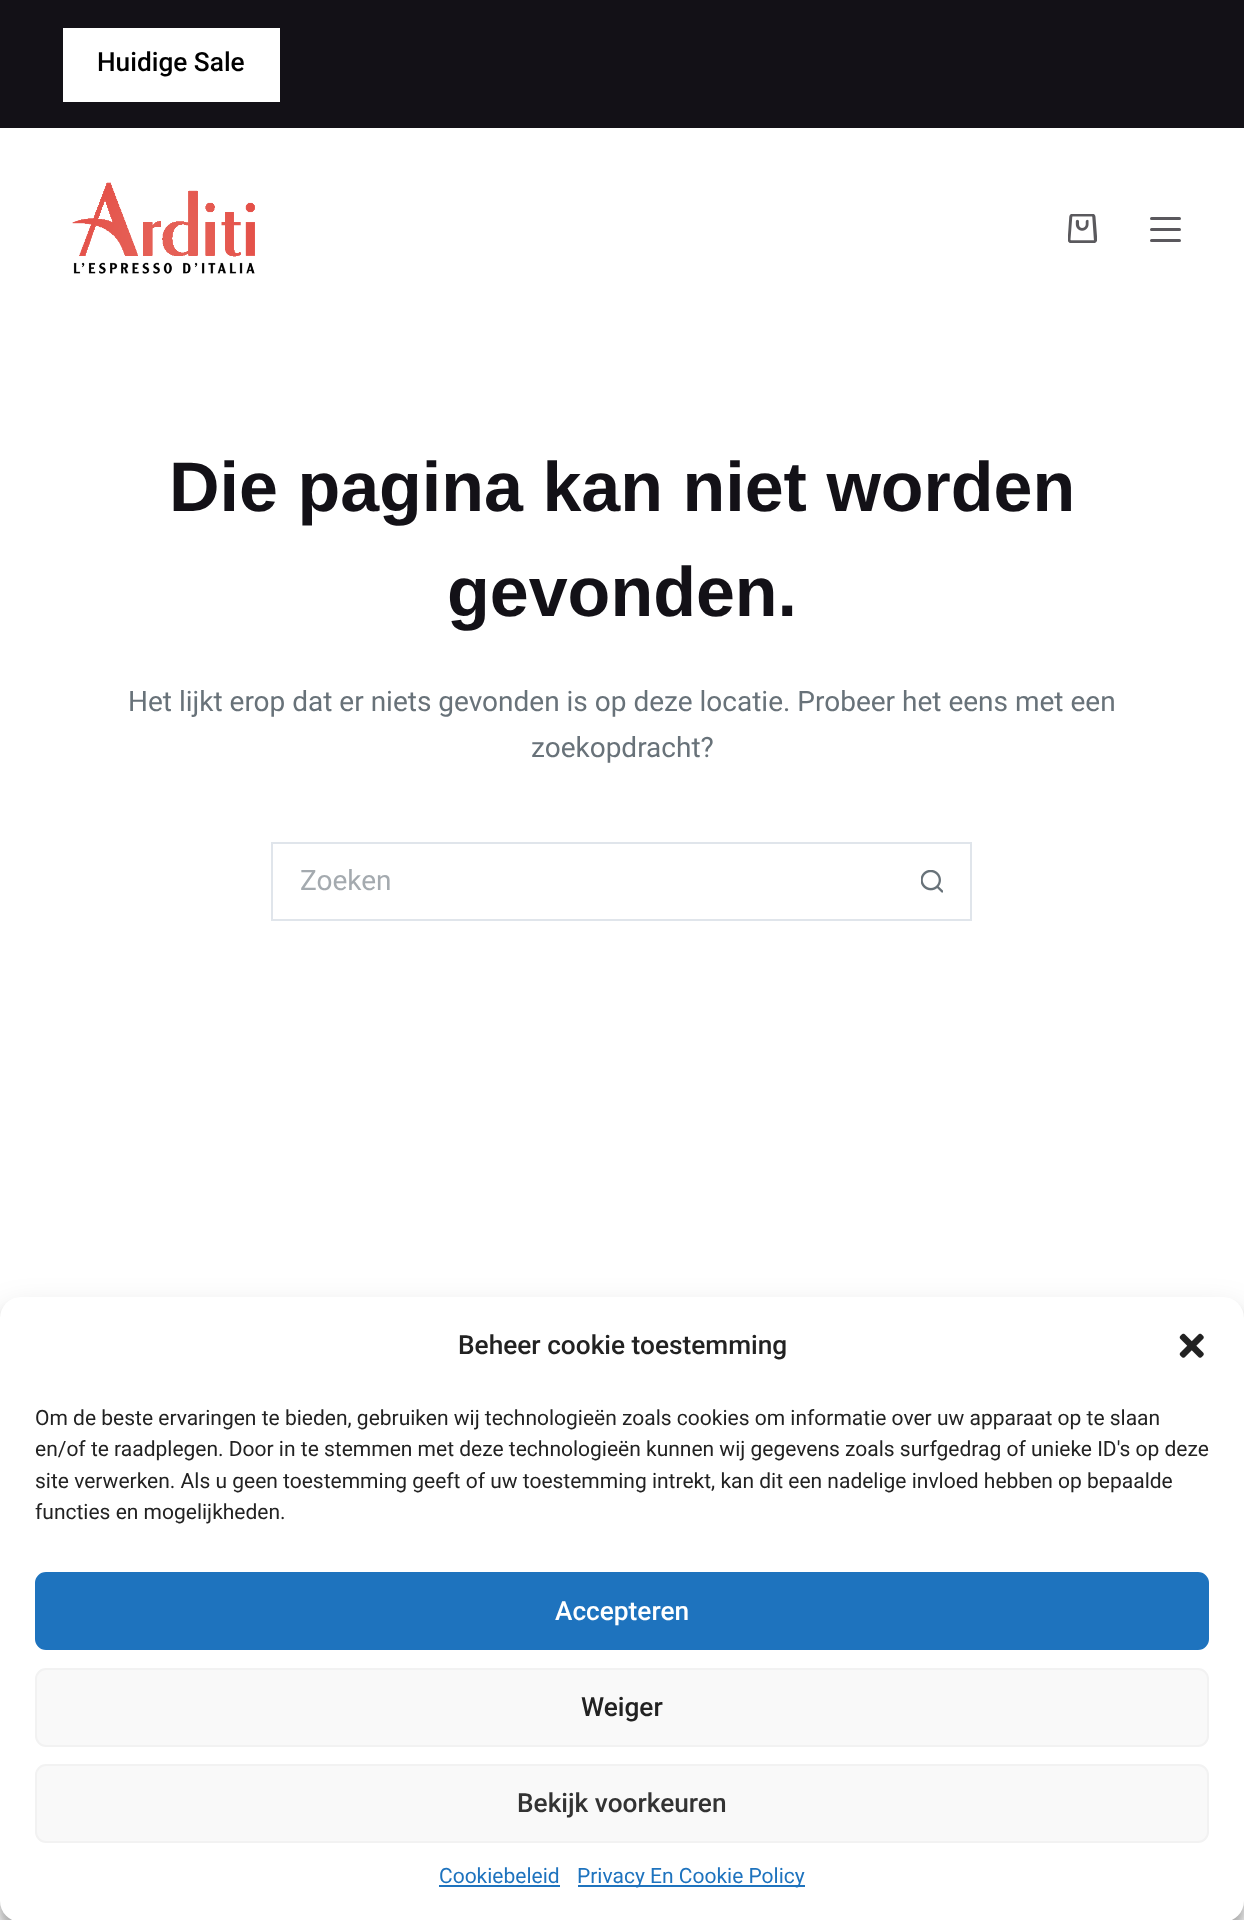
<svg xmlns="http://www.w3.org/2000/svg" width="1244" height="1920" viewBox="0 0 1244 1920">
  <style>
    .t1 { font: 500 26.25px Roboto; fill: #000; }
    .t2 { font: bold 70px Liberation Sans; fill: #131117; }
    .t3 { font: 28px Roboto; fill: #687279; }
    .t4 { font: 28px Roboto; fill: #a4aaaf; }
    .t5 { font: 500 26.25px Roboto; fill: #222; }
    .t6 { font: 21px Roboto; fill: #222; }
    .t7 { font: 500 26.25px Roboto; fill: #fff; }
    .t8 { font: 500 26.25px Roboto; fill: #333; }
    .t9 { font: 21px Roboto; fill: #1e73be; }
  </style>
  <rect width="100%" height="100%" fill="#fff"/>
  <rect x="0" y="0" width="1244" height="128" fill="#131117"/>
  <rect x="63" y="28" width="217" height="74" fill="#fff"/>
  <text x="97" y="71" class="t1">Huidige Sale</text>
  <image x="72" y="182" width="183" height="92" href="images/1.png"/>
  <image x="1068" y="214" width="29" height="29" href="images/2.png"/>
  <rect x="1150" y="217" width="31" height="3" rx="1.5" fill="#5a585d"/>
  <rect x="1150" y="228" width="31" height="3" rx="1.5" fill="#5a585d"/>
  <rect x="1150" y="239" width="31" height="3" rx="1.5" fill="#5a585d"/>
  <text x="169" y="511" class="t2">Die pagina kan niet worden</text>
  <text x="447" y="616" class="t2">gevonden.</text>
  <text x="128" y="711" class="t3">Het lijkt erop dat er niets gevonden is op deze locatie. Probeer het eens met een</text>
  <text x="531" y="757" class="t3">zoekopdracht?</text>
  <rect x="271" y="842" width="700" height="2" fill="#e0e5eb"/>
  <rect x="271" y="919" width="622" height="2" fill="#e0e5eb"/>
  <rect x="271" y="842" width="2" height="79" fill="#e0e5eb"/>
  <text x="300" y="890" class="t4">Zoeken</text>
  <rect x="970" y="842" width="2" height="79" fill="#e0e5eb"/>
  <rect x="893" y="919" width="78" height="2" fill="#e0e5eb"/>
  <image x="921" y="870" width="22" height="23" href="images/3.png"/>
  <rect x="0" y="1307" width="1244" height="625" rx="21" fill="#0000003b" filter="blur(5px)"/>
  <rect x="0" y="1314" width="1244" height="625" rx="21" fill="#00000030" filter="blur(17.5px)"/>
  <rect x="0" y="1297" width="1244" height="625" rx="21" fill="#fff"/>
  <text x="458" y="1354" class="t5">Beheer cookie toestemming</text>
  <image x="1179" y="1333" width="25" height="25" href="images/4.png"/>
  <text x="35" y="1425" class="t6">Om de beste ervaringen te bieden, gebruiken wij technologieën zoals cookies om informatie over uw apparaat op te slaan</text>
  <text x="35" y="1456" class="t6">en/of te raadplegen. Door in te stemmen met deze technologieën kunnen wij gegevens zoals surfgedrag of unieke ID's op deze</text>
  <text x="35" y="1488" class="t6">site verwerken. Als u geen toestemming geeft of uw toestemming intrekt, kan dit een nadelige invloed hebben op bepaalde</text>
  <text x="35" y="1519" class="t6">functies en mogelijkheden.</text>
  <rect x="36" y="1573" width="1172" height="76" rx="10" fill="#1e73be" stroke="#1e73be" stroke-width="2"/>
  <text x="555" y="1620" class="t7">Accepteren</text>
  <rect x="36" y="1669" width="1172" height="77" rx="10" fill="#f9f9f9" stroke="#f2f2f2" stroke-width="2"/>
  <text x="581" y="1716" class="t5">Weiger</text>
  <rect x="36" y="1765" width="1172" height="77" rx="10" fill="#f9f9f9" stroke="#f2f2f2" stroke-width="2"/>
  <text x="517" y="1812" class="t8">Bekijk voorkeuren</text>
  <text x="439" y="1883" class="t9">Cookiebeleid</text>
  <rect x="439" y="1885" width="121" height="2" fill="#1e73be"/>
  <rect x="578" y="1885" width="227" height="2" fill="#1e73be"/>
  <text x="577" y="1883" class="t9">Privacy En Cookie Policy</text>
</svg>
